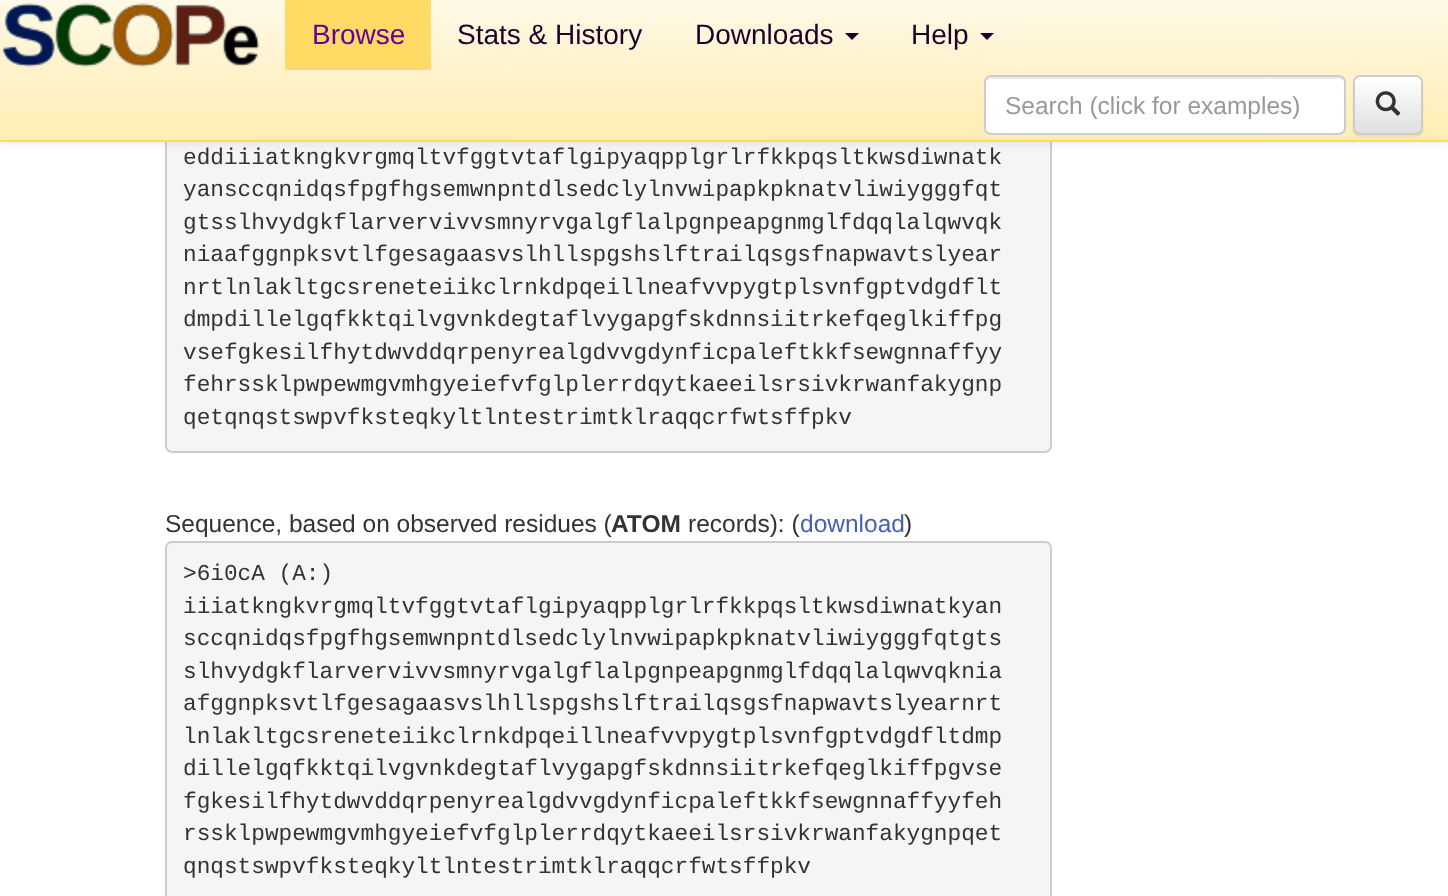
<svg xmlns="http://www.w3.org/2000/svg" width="1448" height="896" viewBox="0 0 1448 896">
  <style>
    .t1 { font: 28px Liberation Sans; fill: #609; }
    .t2 { font: 28px Liberation Sans; fill: #1d002b; }
    .t3 { font: 24.5px Liberation Sans; fill: #999; }
    .t4 { font: 22.75px Liberation Mono; fill: #333; }
    .t5 { font: 24.5px Liberation Sans; fill: #333; }
    .t6 { font: bold 24.5px Liberation Sans; fill: #333; }
    .t7 { font: 24.5px Liberation Sans; fill: #465eb4; }
  </style>
  <defs>
    <linearGradient id="g1" gradientUnits="userSpaceOnUse" x1="725" y1="0" x2="725" y2="140"><stop offset="0" stop-color="#fff9e6"/><stop offset="1" stop-color="#ffedb3"/></linearGradient>
    <clipPath id="clip1"><rect x="1006" y="91" width="317" height="28"/></clipPath>
    <clipPath id="clip2"><rect x="1353" y="75" width="70" height="60" rx="7"/></clipPath>
    <linearGradient id="g2" gradientUnits="userSpaceOnUse" x1="1388" y1="77" x2="1388" y2="133"><stop offset="0" stop-color="#fff"/><stop offset="1" stop-color="#e0e0e0"/></linearGradient>
  </defs>
  <rect width="100%" height="100%" fill="#fff"/>
  <rect x="166" y="94" width="885" height="358" rx="6" fill="#f5f5f5" stroke="#ccc" stroke-width="2"/>
  <rect x="0" y="2" width="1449" height="142" fill="#00000012" filter="blur(4.5px)"/>
  <rect x="0" y="2" width="1448" height="138" fill="url(#g1)"/>
  <rect x="0" y="0" width="1448" height="2" fill="#fffae9"/>
  <rect x="0" y="140" width="1448" height="2" fill="#ffda65"/>
  <image x="3" y="3" width="256" height="64" href="images/1.png"/>
  <rect x="285" y="0" width="146" height="70" fill="#ffda65"/>
  <text x="312" y="44" class="t1">Browse</text>
  <text x="457" y="44" class="t2">Stats &amp; History</text>
  <text x="695" y="44" class="t2">Downloads</text>
  <path d="M845 33H859L852 40Z" fill="#1d002b"/>
  <text x="911" y="44" class="t2">Help</text>
  <path d="M980 33H994L987 40Z" fill="#1d002b"/>
  <rect x="984" y="75" width="362" height="60" rx="7" fill="#fff"/>
  <path d="M990 79H1339C1342 79 1344 81 1344 84C1344 81 1343 77 1339 77H990C986 77 985 81 985 84C985 81 988 79 990 79Z" fill="#ececec"/>
  <rect x="985" y="76" width="360" height="58" rx="6" fill="none" stroke="#ccc" stroke-width="2"/>
  <g clip-path="url(#clip1)">
    <text x="1005" y="114" class="t3">Search (click for examples)</text>
  </g>
  <rect x="1353" y="77" width="70" height="60" rx="7" fill="#00000012" filter="blur(1px)"/>
  <g clip-path="url(#clip2)">
    <rect x="1353" y="77" width="70" height="56" fill="url(#g2)"/>
  </g>
  <rect x="1354" y="76" width="68" height="58" rx="6" fill="none" stroke="#ccc" stroke-width="2"/>
  <image x="1375" y="91" width="26" height="25" href="images/2.png"/>
  <text x="183" y="164" class="t4">eddiiiatkngkvrgmqltvfggtvtaflgipyaqpplgrlrfkkpqsltkwsdiwnatk</text>
  <text x="183" y="196" class="t4">yansccqnidqsfpgfhgsemwnpntdlsedclylnvwipapkpknatvliwiygggfqt</text>
  <text x="183" y="229" class="t4">gtsslhvydgkflarvervivvsmnyrvgalgflalpgnpeapgnmglfdqqlalqwvqk</text>
  <text x="183" y="261" class="t4">niaafggnpksvtlfgesagaasvslhllspgshslftrailqsgsfnapwavtslyear</text>
  <text x="183" y="294" class="t4">nrtlnlakltgcsreneteiikclrnkdpqeillneafvvpygtplsvnfgptvdgdflt</text>
  <text x="183" y="326" class="t4">dmpdillelgqfkktqilvgvnkdegtaflvygapgfskdnnsiitrkefqeglkiffpg</text>
  <text x="183" y="359" class="t4">vsefgkesilfhytdwvddqrpenyrealgdvvgdynficpaleftkkfsewgnnaffyy</text>
  <text x="183" y="391" class="t4">fehrssklpwpewmgvmhgyeiefvfglplerrdqytkaeeilsrsivkrwanfakygnp</text>
  <text x="183" y="424" class="t4">qetqnqstswpvfksteqkyltlntestrimtklraqqcrfwtsffpkv</text>
  <text x="165" y="532" class="t5">Sequence, based on observed residues (</text>
  <text x="611" y="532" class="t6">ATOM</text>
  <text x="688" y="532" class="t5">records): (</text>
  <text x="800" y="532" class="t7">download</text>
  <text x="904" y="532" class="t5">)</text>
  <rect x="166" y="542" width="885" height="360" rx="6" fill="#f5f5f5" stroke="#ccc" stroke-width="2"/>
  <text x="183" y="580" class="t4">&gt;6i0cA (A:)</text>
  <text x="183" y="613" class="t4">iiiatkngkvrgmqltvfggtvtaflgipyaqpplgrlrfkkpqsltkwsdiwnatkyan</text>
  <text x="183" y="645" class="t4">sccqnidqsfpgfhgsemwnpntdlsedclylnvwipapkpknatvliwiygggfqtgts</text>
  <text x="183" y="678" class="t4">slhvydgkflarvervivvsmnyrvgalgflalpgnpeapgnmglfdqqlalqwvqknia</text>
  <text x="183" y="710" class="t4">afggnpksvtlfgesagaasvslhllspgshslftrailqsgsfnapwavtslyearnrt</text>
  <text x="183" y="743" class="t4">lnlakltgcsreneteiikclrnkdpqeillneafvvpygtplsvnfgptvdgdfltdmp</text>
  <text x="183" y="775" class="t4">dillelgqfkktqilvgvnkdegtaflvygapgfskdnnsiitrkefqeglkiffpgvse</text>
  <text x="183" y="808" class="t4">fgkesilfhytdwvddqrpenyrealgdvvgdynficpaleftkkfsewgnnaffyyfeh</text>
  <text x="183" y="840" class="t4">rssklpwpewmgvmhgyeiefvfglplerrdqytkaeeilsrsivkrwanfakygnpqet</text>
  <text x="183" y="873" class="t4">qnqstswpvfksteqkyltlntestrimtklraqqcrfwtsffpkv</text>
</svg>
